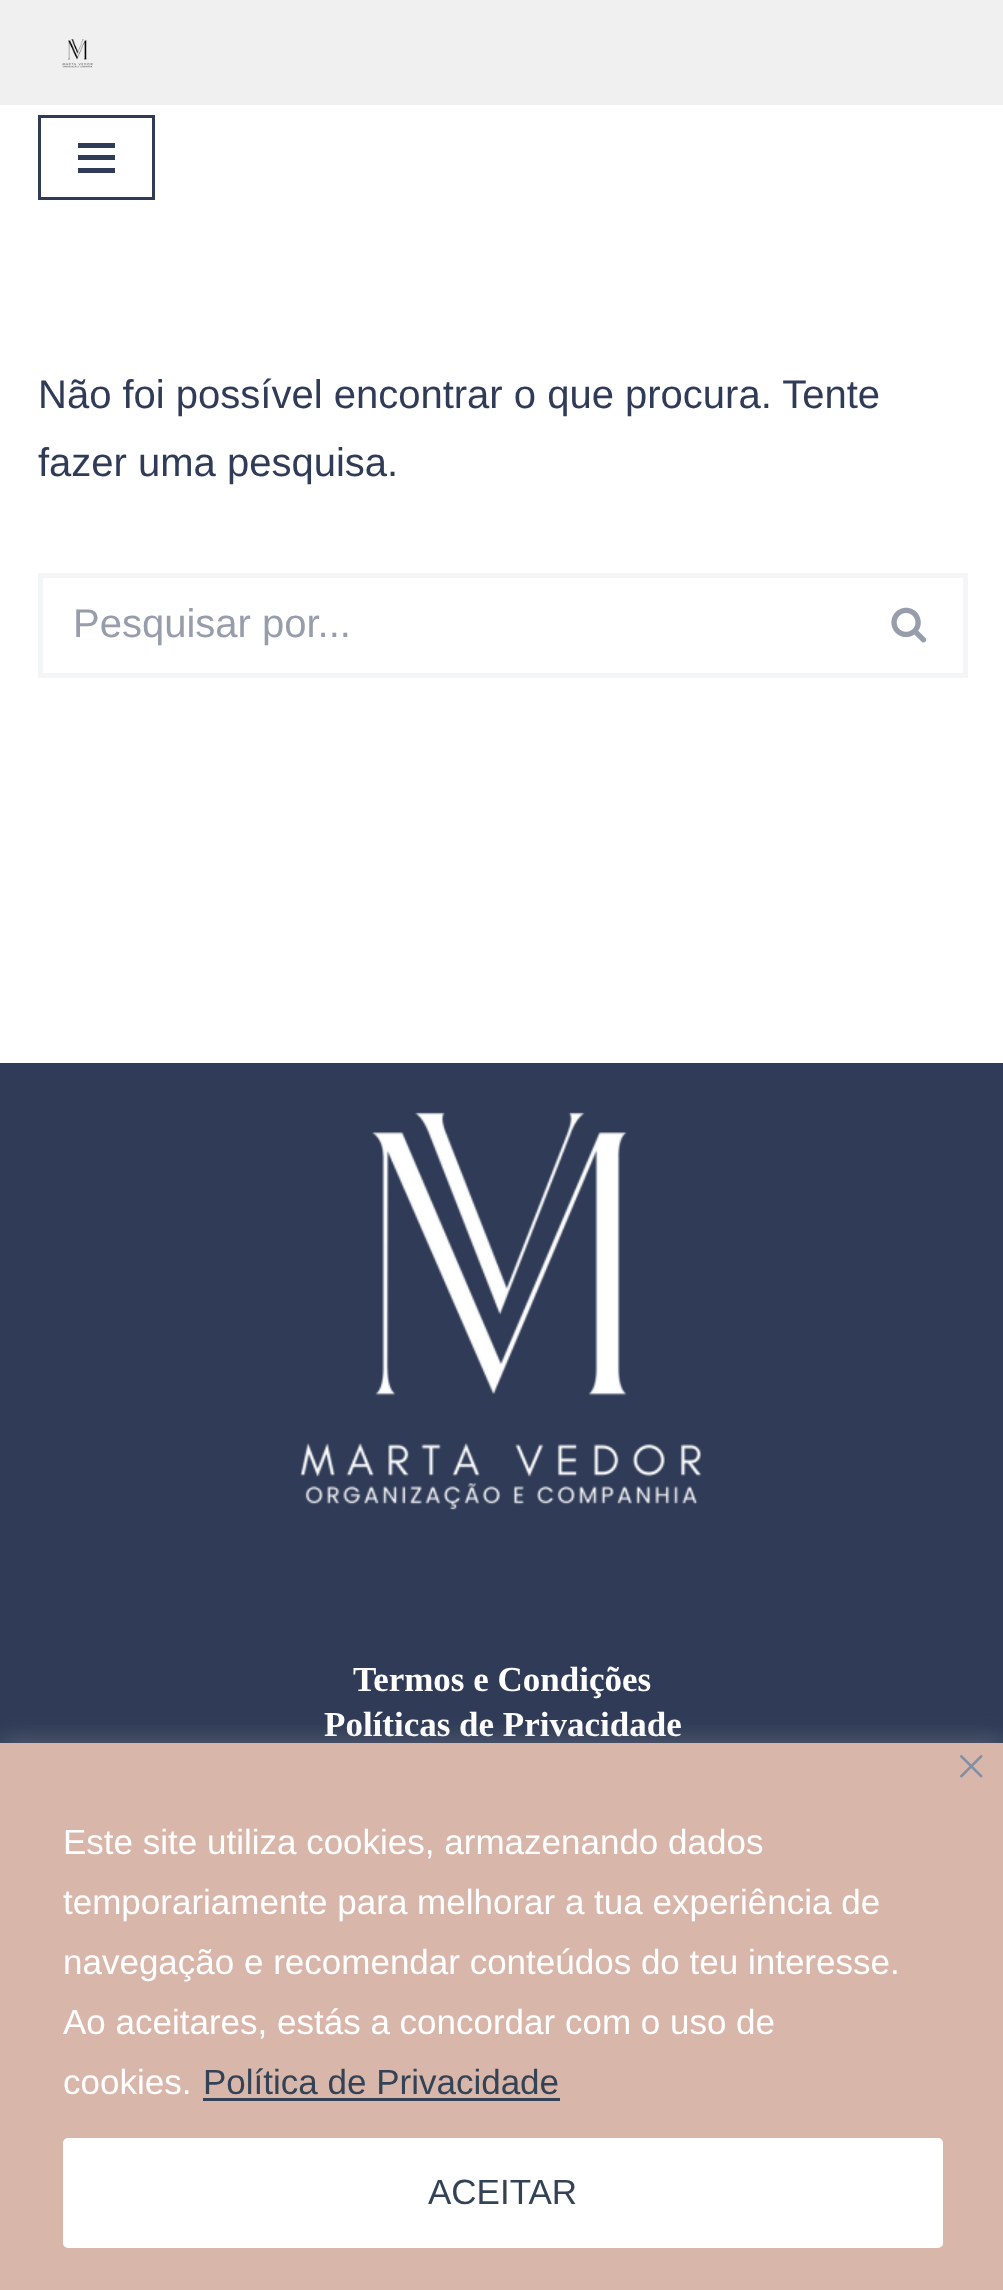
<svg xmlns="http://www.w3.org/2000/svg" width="1003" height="2290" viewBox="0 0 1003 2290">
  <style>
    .t1 { font: 40px Liberation Sans; fill: #2f3b57; }
    .t2 { font: 40px Liberation Sans; fill: #979dab; }
    .t3 { font: bold 35px Liberation Serif; fill: #fff; }
    .t4 { font: 35px Liberation Sans; fill: #fff; }
    .t5 { font: 35px Liberation Sans; fill: #334355; }
  </style>
  <rect width="100%" height="100%" fill="#fff"/>
  <rect x="0" y="0" width="1003" height="105" fill="#f0f0f0"/>
  <image x="62" y="39" width="31" height="29" href="images/1.png"/>
  <rect x="39.5" y="116.5" width="114" height="82" fill="none" stroke="#2f3b57" stroke-width="3"/>
  <rect x="78" y="143" width="37" height="5" fill="#2f3b57"/>
  <rect x="78" y="155" width="37" height="5" fill="#2f3b57"/>
  <rect x="78" y="168" width="37" height="5" fill="#2f3b57"/>
  <text x="38" y="408" class="t1">Não foi possível encontrar o que procura. Tente</text>
  <text x="38" y="476" class="t1">fazer uma pesquisa.</text>
  <rect x="38" y="573" width="930" height="5" fill="#f4f5f7"/>
  <rect x="38" y="673" width="817" height="5" fill="#f4f5f7"/>
  <rect x="38" y="573" width="5" height="105" fill="#f4f5f7"/>
  <text x="73" y="637" class="t2">Pesquisar por...</text>
  <rect x="963" y="573" width="5" height="105" fill="#f4f5f7"/>
  <rect x="855" y="673" width="113" height="5" fill="#f4f5f7"/>
  <image x="891" y="607" width="36" height="36" href="images/2.png"/>
  <rect x="0" y="1063" width="1003" height="680" fill="#2f3b57"/>
  <image x="300" y="1112" width="402" height="398" href="images/3.png"/>
  <text x="353" y="1691" class="t3">Termos e Condições</text>
  <text x="324" y="1736" class="t3">Políticas de Privacidade</text>
  <rect x="0" y="1740" width="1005" height="548" fill="#acabab4d" filter="blur(12.5px)"/>
  <rect x="0" y="1743" width="1003" height="547" fill="#d9b6aa"/>
  <image x="960" y="1755" width="23" height="23" href="images/4.png"/>
  <text x="63" y="1854" class="t4">Este site utiliza cookies, armazenando dados</text>
  <text x="63" y="1914" class="t4">temporariamente para melhorar a tua experiência de</text>
  <text x="63" y="1974" class="t4">navegação e recomendar conteúdos do teu interesse.</text>
  <text x="63" y="2034" class="t4">Ao aceitares, estás a concordar com o uso de</text>
  <text x="63" y="2094" class="t4">cookies.</text>
  <text x="203" y="2094" class="t5">Política de Privacidade</text>
  <rect x="203" y="2098" width="357" height="3" fill="#334355"/>
  <rect x="65.5" y="2140.5" width="875" height="105" rx="2.5" fill="#fff" stroke="#fff" stroke-width="5"/>
  <text x="428" y="2204" class="t5">ACEITAR</text>
</svg>
